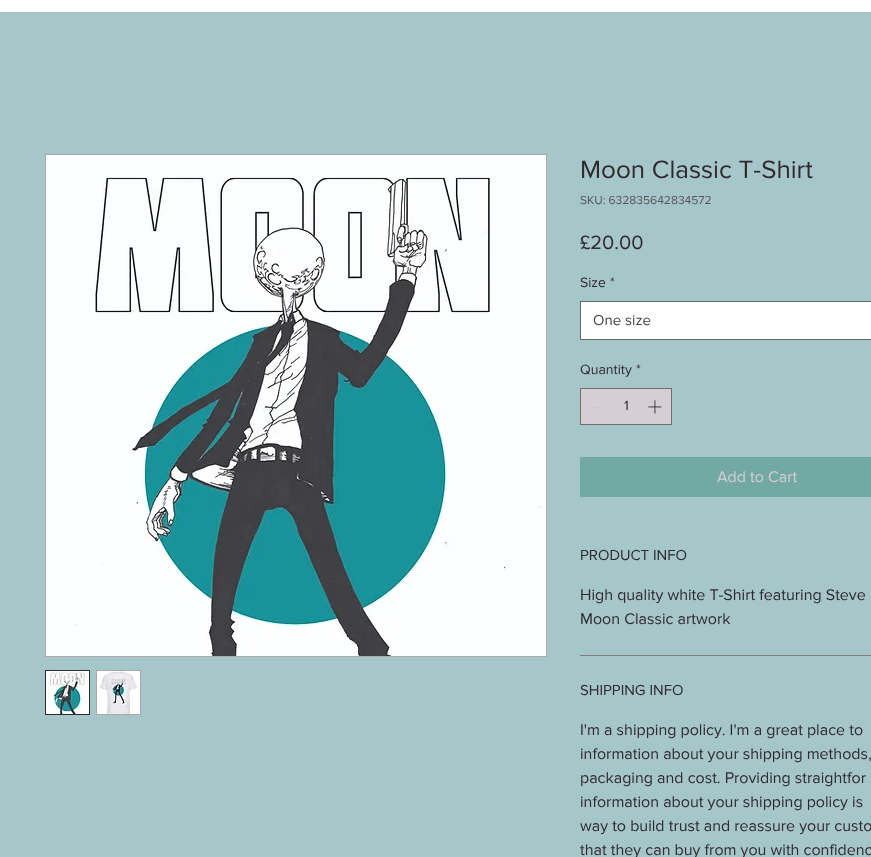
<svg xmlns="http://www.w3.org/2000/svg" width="871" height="857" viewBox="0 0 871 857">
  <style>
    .t1 { font: 26px 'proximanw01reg'; fill: #32292f; }
    .t2 { font: 12px 'proximanw01reg'; fill: #5b5358; }
    .t3 { font: 20px 'proximanw01reg'; fill: #32292f; }
    .t4 { font: 14px 'proximanw01reg'; fill: #32292f; }
    .t5 { font: 15px 'proximanw01reg'; fill: #444; }
    .t6 { font: 16px 'proximanw01reg'; fill: #d6ced3; }
    .t7 { font: 15px 'proximanw01reg'; fill: #32292f; }
    .t8 { font: 16px 'proximanw01reg'; fill: #32292f; }
  </style>
  <rect width="100%" height="100%" fill="#fff"/>
  <rect x="0" y="12" width="871" height="845" fill="#a5c7ca"/>
  <rect x="45.5" y="154.5" width="501" height="502" fill="none" stroke="#ada5aa"/>
  <image x="46" y="155" width="500" height="501" href="images/1.png"/>
  <rect x="45.5" y="670.5" width="44" height="44" fill="none" stroke="#32292f"/>
  <image x="46" y="671" width="43" height="43" href="images/2.png"/>
  <rect x="96" y="670" width="45" height="45" fill="#ada5aa"/>
  <image x="97" y="671" width="43" height="43" href="images/3.png"/>
  <text x="580" y="178" class="t1">Moon Classic T-Shirt</text>
  <text x="580" y="204" class="t2">SKU: 632835642834572</text>
  <text x="580" y="249" class="t3">£20.00</text>
  <text x="580" y="287" class="t4">Size</text>
  <text x="610" y="287" class="t4">*</text>
  <rect x="580.5" y="301.5" width="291" height="38" fill="#fff" stroke="#666"/>
  <text x="593" y="325" class="t5">One size</text>
  <text x="580" y="374" class="t4">Quantity</text>
  <text x="636" y="374" class="t4">*</text>
  <rect x="580.5" y="388.5" width="91" height="36" fill="#d6ced3" stroke="#746b71"/>
  <rect x="592" y="407" width="13" height="1" fill="#cfcbcd"/>
  <text x="624" y="410" class="t4">1</text>
  <image x="648" y="400" width="14" height="14" href="images/4.png"/>
  <rect x="580" y="457" width="291" height="40" fill="#73a9a3"/>
  <text x="717" y="482" class="t6">Add to Cart</text>
  <rect x="580" y="655" width="291" height="1" fill="#847c81"/>
  <text x="580" y="560" class="t7">PRODUCT INFO</text>
  <text x="580" y="600" class="t8">High quality white T-Shirt featuring Steve</text>
  <text x="580" y="624" class="t8">Moon Classic artwork</text>
  <text x="580" y="695" class="t7">SHIPPING INFO</text>
  <text x="580" y="735" class="t8">I'm a shipping policy. I'm a great place to</text>
  <text x="580" y="759" class="t8">information about your shipping methods,</text>
  <text x="580" y="783" class="t8">packaging and cost. Providing straightfor</text>
  <text x="580" y="807" class="t8">information about your shipping policy is</text>
  <text x="580" y="831" class="t8">way to build trust and reassure your custo</text>
  <text x="580" y="855" class="t8">that they can buy from you with confidenc</text>
</svg>
